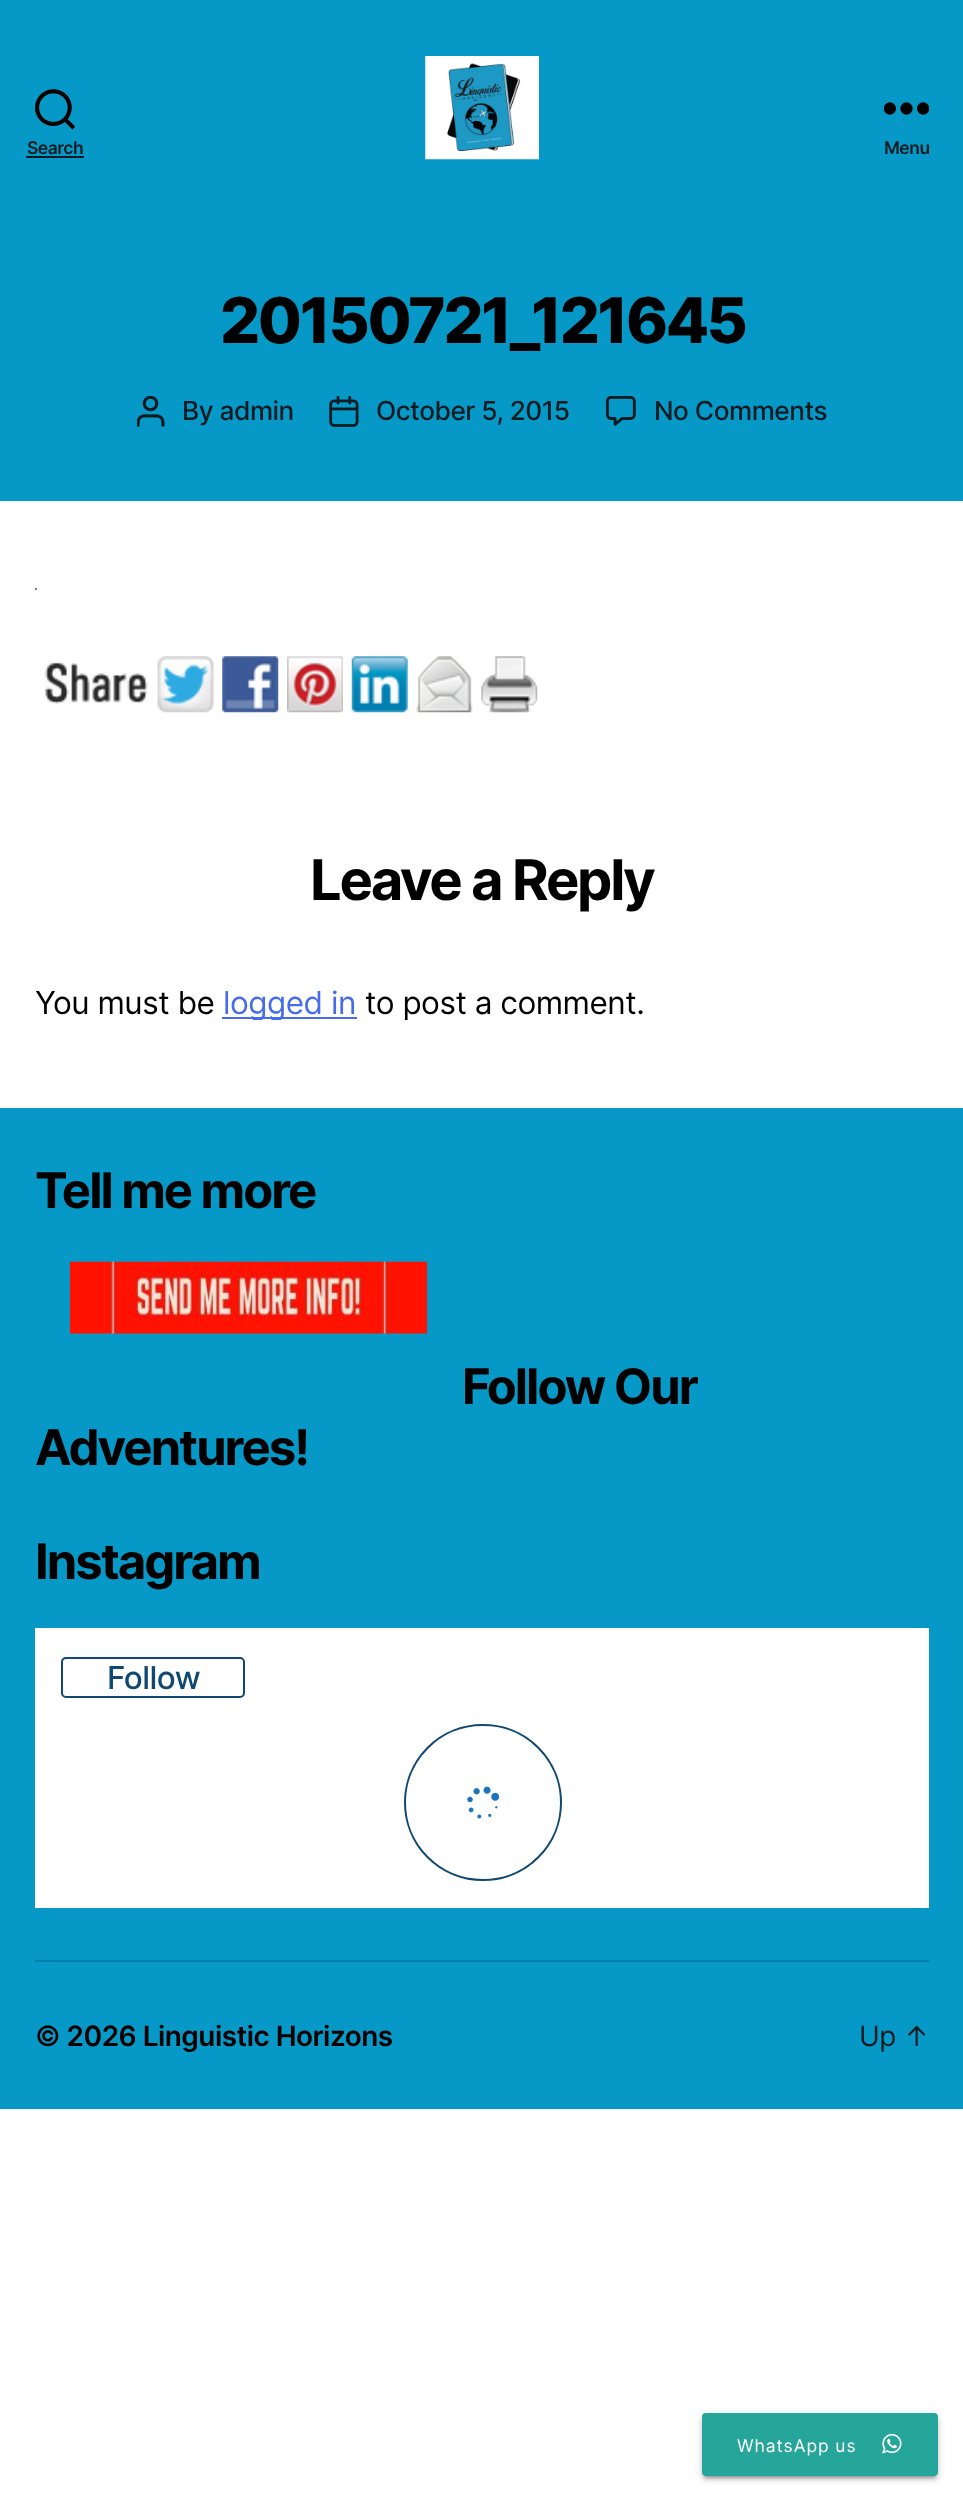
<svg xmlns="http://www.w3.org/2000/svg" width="963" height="2502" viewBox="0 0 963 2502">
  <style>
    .t1 { font: 600 17.5px Inter; letter-spacing: -0.5px; fill: #0c1b21; }
    .t2 { font: 800 63px Inter; letter-spacing: -2.6px; fill: #000; }
    .t3 { font: 500 26.25px Inter; letter-spacing: -0.5px; fill: #0c1b21; }
    .t4 { font: bold 56px Inter; letter-spacing: -2.3px; fill: #000; }
    .t5 { font: 31.5px Inter; letter-spacing: -0.5px; fill: #000; }
    .t6 { font: 31.5px Inter; letter-spacing: -0.5px; fill: #466ceb; }
    .t7 { font: bold 49px Inter; letter-spacing: -2px; fill: #000; }
    .t8 { font: 500 31.5px Inter; letter-spacing: -0.5px; fill: #0f4973; }
    .t9 { font: 600 28px Inter; letter-spacing: -0.5px; fill: #000; }
    .t10 { font: 28px Inter; letter-spacing: -0.5px; fill: #0c1b21; }
    .t11 { font: 17.5px Inter; letter-spacing: 0.9px; fill: #fff; }
  </style>
  <defs>
    <clipPath id="clip1"><rect x="0" y="215" width="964" height="805"/></clipPath>
  </defs>
  <rect width="100%" height="100%" fill="#fff"/>
  <rect x="0" y="0" width="963" height="501" fill="#0699c7"/>
  <image x="35" y="89" width="40" height="41" href="images/1.png"/>
  <text x="27" y="154" class="t1">Search</text>
  <rect x="26" y="156" width="58" height="2" fill="#0c1b21"/>
  <image x="425" y="56" width="114" height="104" href="images/2.png"/>
  <image x="884" y="102" width="45" height="13" href="images/3.png"/>
  <text x="884" y="154" class="t1">Menu</text>
  <text x="220" y="343" class="t2">20150721_121645</text>
  <image x="137" y="396" width="28" height="31" href="images/4.png"/>
  <text x="182" y="420" class="t3">By admin</text>
  <image x="329" y="396" width="30" height="31" href="images/5.png"/>
  <text x="376" y="420" class="t3">October 5, 2015</text>
  <image x="606" y="396" width="30" height="30" href="images/6.png"/>
  <text x="654" y="420" class="t3">No Comments</text>
  <image x="35" y="588" width="2" height="2" href="images/7.png"/>
  <image x="44" y="661" width="104" height="43" href="images/8.png"/>
  <image x="157" y="656" width="57" height="57" href="images/9.png"/>
  <image x="222" y="656" width="57" height="57" href="images/10.png"/>
  <image x="287" y="656" width="56" height="57" href="images/11.png"/>
  <image x="351" y="656" width="57" height="57" href="images/12.png"/>
  <image x="416" y="656" width="57" height="57" href="images/13.png"/>
  <image x="481" y="656" width="57" height="57" href="images/14.png"/>
  <text x="310" y="900" class="t4">Leave a Reply</text>
  <text x="35" y="1014" class="t5">You must be</text>
  <rect x="222" y="1017" width="135" height="2" fill="#466ceb"/>
  <g clip-path="url(#clip1)">
    <text x="223" y="1014" class="t6">logged in</text>
    <text x="365" y="1014" class="t5">to post a comment.</text>
  </g>
  <rect x="0" y="1108" width="963" height="1001" fill="#0699c7"/>
  <rect x="35" y="1960" width="894" height="2" fill="#007da3"/>
  <text x="35" y="1208" class="t7">Tell me more</text>
  <image x="70" y="1261" width="357" height="73" href="images/15.png"/>
  <text x="462" y="1404" class="t7">Follow Our</text>
  <text x="35" y="1465" class="t7">Adventures!</text>
  <text x="35" y="1579" class="t7">Instagram</text>
  <rect x="35" y="1628" width="894" height="280" fill="#fff"/>
  <rect x="62" y="1658" width="182" height="39" rx="4" fill="none" stroke="#0f4973" stroke-width="2"/>
  <text x="107" y="1689" class="t8">Follow</text>
  <rect x="405" y="1725" width="156" height="155" rx="77.5" fill="none" stroke="#0f4973" stroke-width="2"/>
  <image x="467" y="1786" width="33" height="33" href="images/16.png"/>
  <text x="35" y="2046" class="t9">© 2026 Linguistic Horizons</text>
  <text x="859" y="2046" class="t10">Up ↑</text>
  <rect x="705" y="2422" width="230" height="56" fill="#00000033" filter="blur(1px)"/>
  <rect x="702" y="2415" width="236" height="63" rx="4" fill="#0000001f" filter="blur(4.5px)"/>
  <rect x="702" y="2417" width="236" height="63" rx="4" fill="#00000024" filter="blur(2px)"/>
  <rect x="702" y="2413" width="236" height="63" rx="4" fill="#26a69a"/>
  <text x="737" y="2452" class="t11">WhatsApp us</text>
  <image x="882" y="2433" width="20" height="21" href="images/17.png"/>
</svg>
